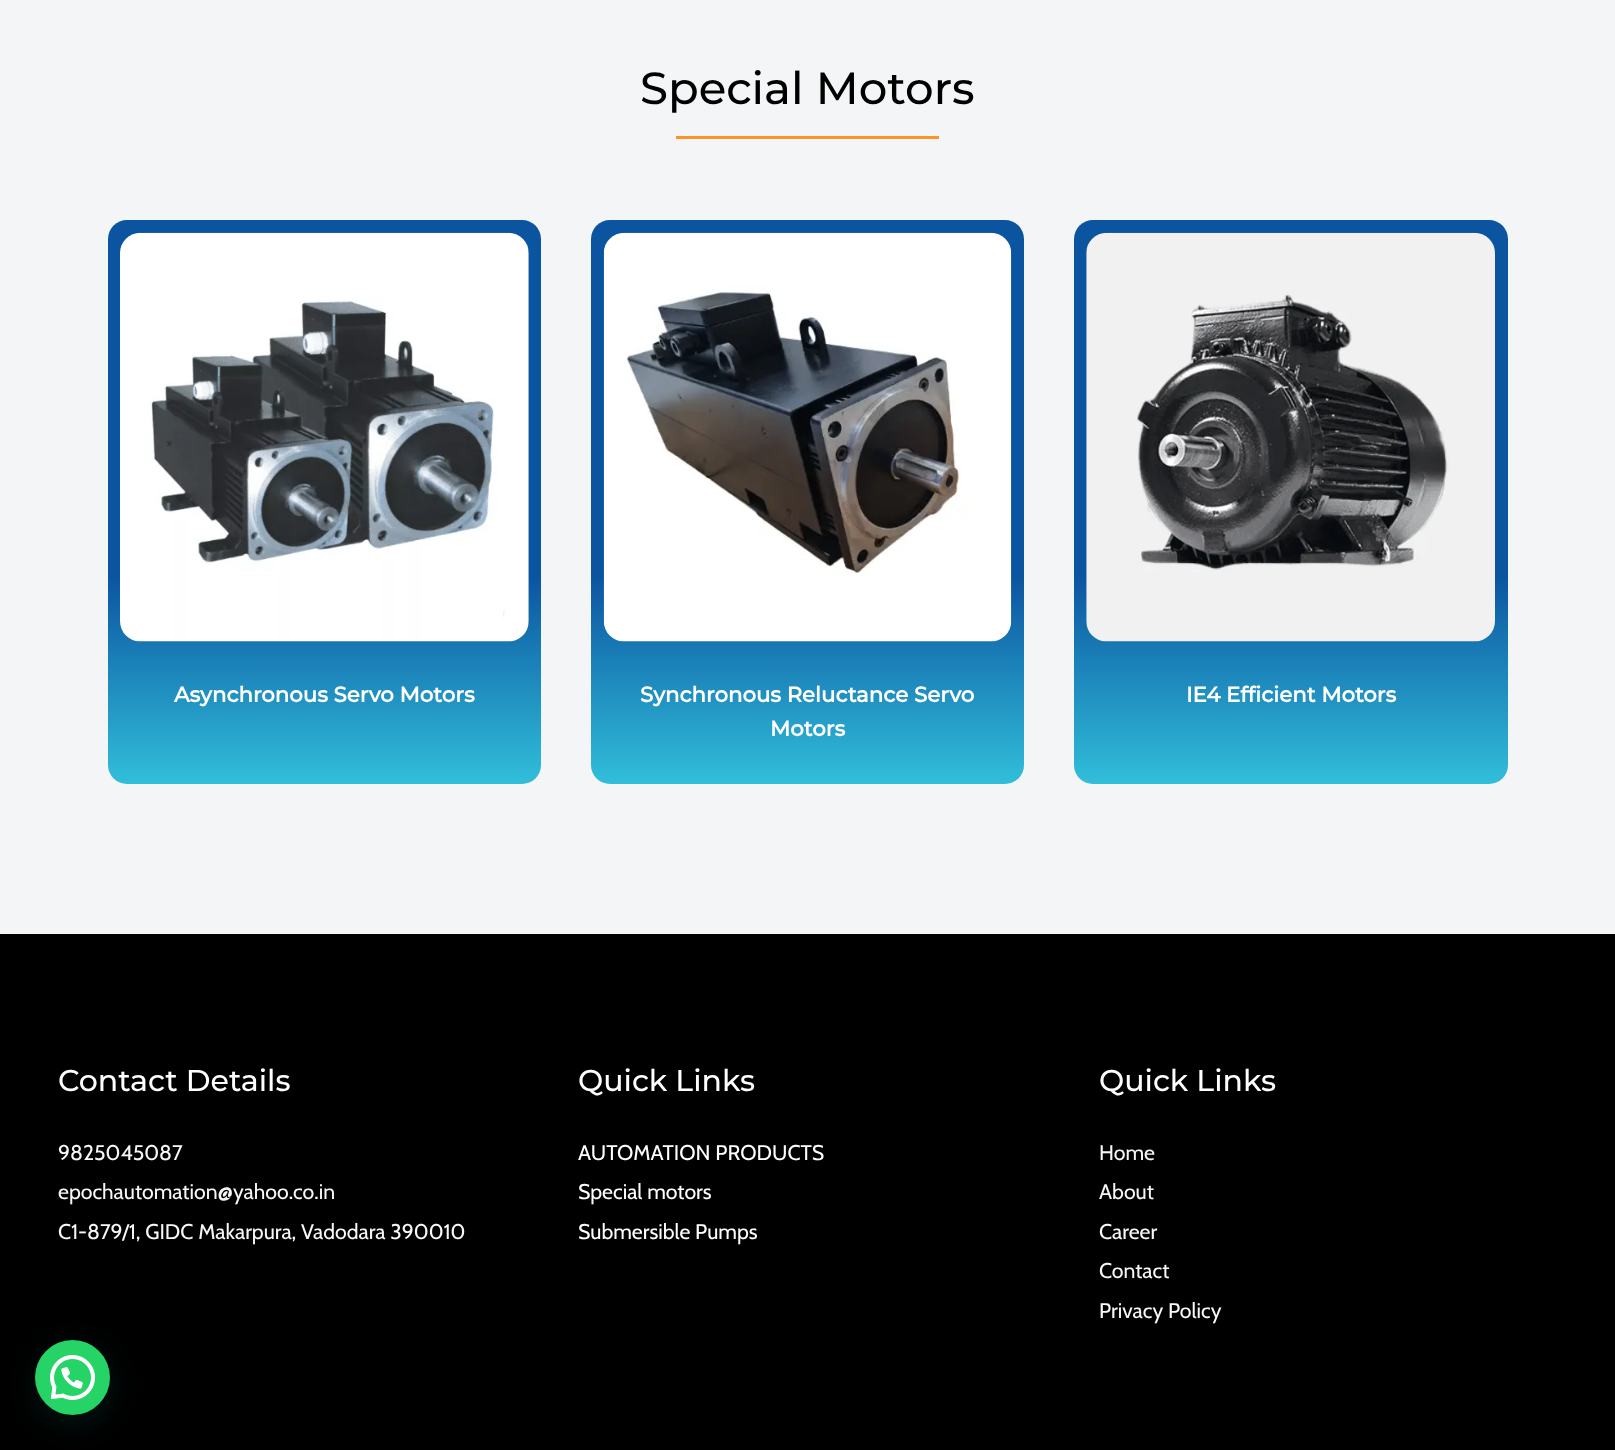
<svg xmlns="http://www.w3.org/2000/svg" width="1615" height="1450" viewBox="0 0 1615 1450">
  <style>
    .t1 { font: 100 45px Montserrat; fill: #000; }
    .t2 { font: bold 21.25px Montserrat; fill: #fff; }
    .t3 { font: 100 30px Montserrat; fill: #fff; }
    .t4 { font: 21.25px Cabin; fill: #f7f7f7; }
    .t5 { font: 21.25px Cabin; fill: #fff; }
  </style>
  <defs>
    <linearGradient id="g1" gradientUnits="userSpaceOnUse" x1="324" y1="220" x2="324" y2="784"><stop offset="0.63" stop-color="#0b54a0"/><stop offset="1" stop-color="#31beda"/></linearGradient>
    <linearGradient id="g2" gradientUnits="userSpaceOnUse" x1="808" y1="220" x2="808" y2="784"><stop offset="0.63" stop-color="#0b54a0"/><stop offset="1" stop-color="#31beda"/></linearGradient>
    <linearGradient id="g3" gradientUnits="userSpaceOnUse" x1="1291" y1="220" x2="1291" y2="784"><stop offset="0.63" stop-color="#0b54a0"/><stop offset="1" stop-color="#31beda"/></linearGradient>
  </defs>
  <rect width="100%" height="100%" fill="#000"/>
  <rect x="0" y="0" width="1615" height="934" fill="#f4f5f6"/>
  <text x="640" y="104" class="t1">Special Motors</text>
  <rect x="676" y="136" width="263" height="3" fill="#fe9428"/>
  <rect x="108" y="220" width="433" height="564" rx="19" fill="url(#g1)"/>
  <image x="120" y="232" width="409" height="410" href="images/1.png"/>
  <text x="174" y="702" class="t2">Asynchronous Servo Motors</text>
  <rect x="591" y="220" width="433" height="564" rx="19" fill="url(#g2)"/>
  <image x="603" y="232" width="409" height="410" href="images/2.png"/>
  <text x="640" y="702" class="t2">Synchronous Reluctance Servo</text>
  <text x="770" y="736" class="t2">Motors</text>
  <rect x="1074" y="220" width="434" height="564" rx="19" fill="url(#g3)"/>
  <image x="1086" y="232" width="409" height="410" href="images/3.png"/>
  <text x="1186" y="702" class="t2">IE4 Efficient Motors</text>
  <text x="58" y="1091" class="t3">Contact Details</text>
  <text x="58" y="1160" class="t4">9825045087</text>
  <text x="58" y="1199" class="t4">epochautomation@yahoo.co.in</text>
  <text x="58" y="1239" class="t4">C1-879/1, GIDC Makarpura, Vadodara 390010</text>
  <text x="578" y="1091" class="t3">Quick Links</text>
  <text x="578" y="1160" class="t5">AUTOMATION PRODUCTS</text>
  <text x="578" y="1199" class="t5">Special motors</text>
  <text x="578" y="1239" class="t5">Submersible Pumps</text>
  <text x="1099" y="1091" class="t3">Quick Links</text>
  <text x="1099" y="1160" class="t4">Home</text>
  <text x="1099" y="1199" class="t4">About</text>
  <text x="1099" y="1239" class="t4">Career</text>
  <text x="1099" y="1278" class="t4">Contact</text>
  <text x="1099" y="1318" class="t4">Privacy Policy</text>
  <rect x="36" y="1348" width="75" height="75" rx="37.5" fill="#075e543d" filter="blur(15px)"/>
  <circle cx="72.5" cy="1377.5" r="37.5" fill="#25d366"/>
  <image x="50" y="1355" width="45" height="45" href="images/4.png"/>
</svg>
